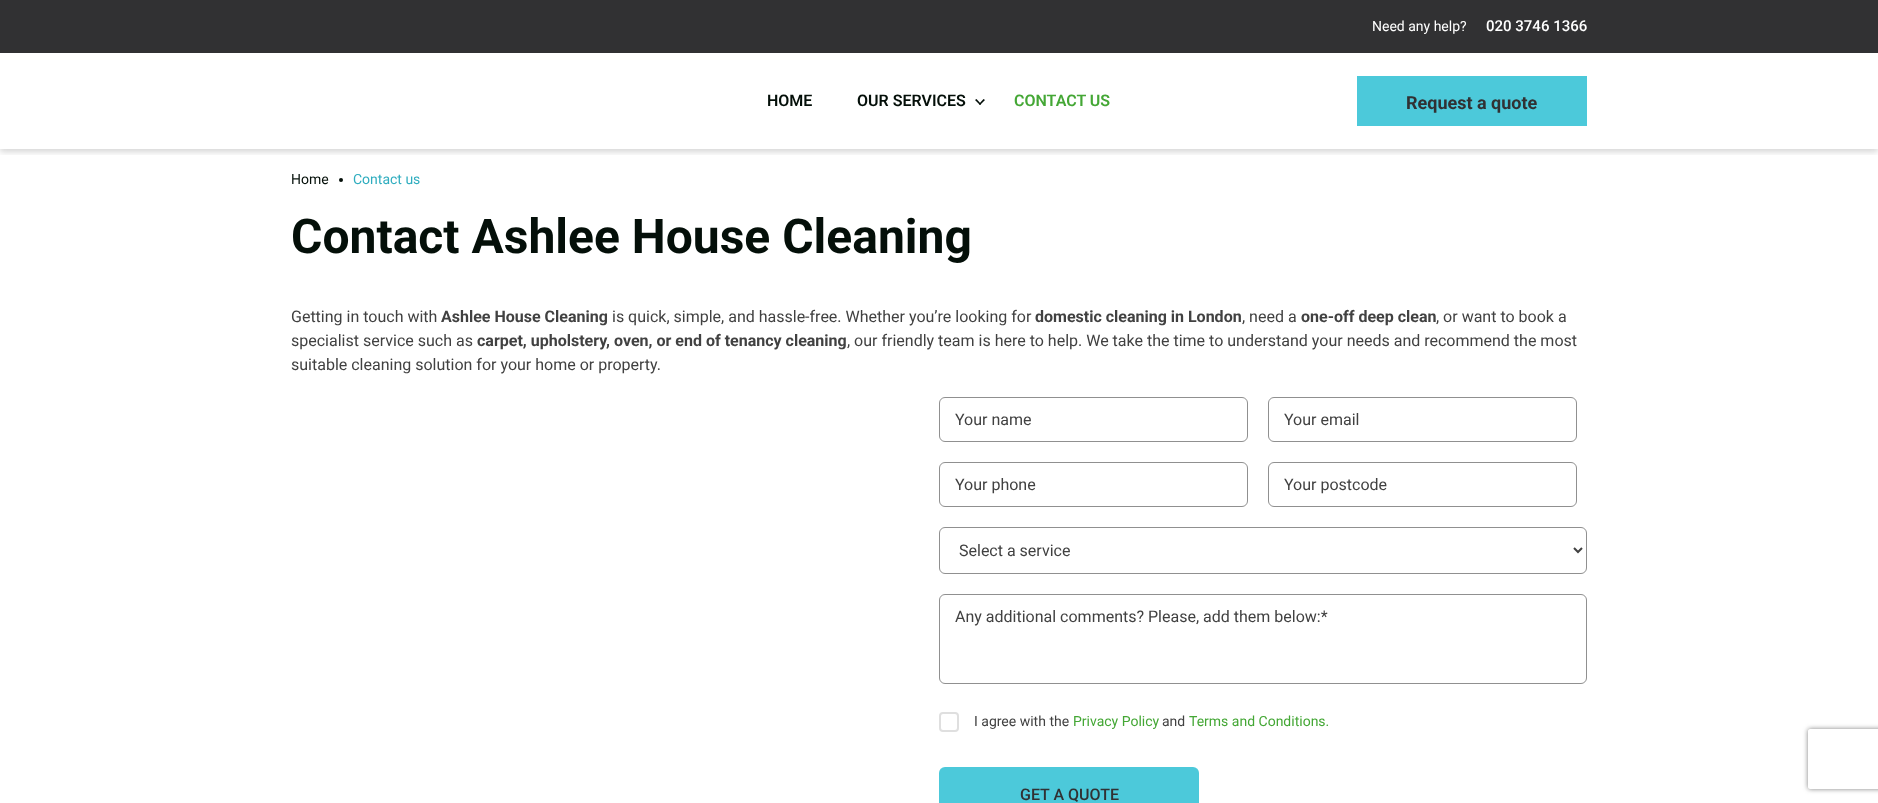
<svg xmlns="http://www.w3.org/2000/svg" width="1878" height="803" viewBox="0 0 1878 803">
  <style>
    .t1 { font: 14px Roboto; fill: #fff; }
    .t2 { font: 500 15px Roboto; fill: #fff; }
    .t3 { font: 600 16px Roboto; fill: #040f09; }
    .t4 { font: 600 16px Roboto; fill: #44a735; }
    .t5 { font: bold 18px Roboto; fill: #313133; }
    .t6 { font: 14px Roboto; fill: #040f09; }
    .t7 { font: 14px Roboto; fill: #2fadbf; }
    .t8 { font: bold 48px Roboto; fill: #040f09; }
    .t9 { font: 16px Roboto; fill: #414141; }
    .t10 { font: bold 16px Roboto; fill: #414141; }
    .t11 { font: 14px Roboto; fill: #414141; }
    .t12 { font: 14px Roboto; fill: #44a735; }
    .t13 { font: 500 16px Roboto; fill: #313133; }
  </style>
  <defs>
    <clipPath id="clip1"><rect x="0" y="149" width="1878" height="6"/></clipPath>
    <clipPath id="clip2"><path d="M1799 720H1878V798H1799ZM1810 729H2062C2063 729 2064 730 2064 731V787C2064 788 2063 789 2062 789H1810C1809 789 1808 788 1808 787V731C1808 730 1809 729 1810 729Z" clip-rule="evenodd"/></clipPath>
  </defs>
  <rect width="100%" height="100%" fill="#fff"/>
  <g clip-path="url(#clip1)">
    <rect x="0" y="3" width="1878" height="149" fill="#00000029" filter="blur(3px)"/>
  </g>
  <rect x="0" y="0" width="1878" height="53" fill="#313133"/>
  <text x="1372" y="31" class="t1">Need any help?</text>
  <text x="1486" y="31" class="t2">020 3746 1366</text>
  <text x="767" y="106" class="t3">HOME</text>
  <text x="857" y="106" class="t3">OUR SERVICES</text>
  <path d="M975 100L976.5 99L981 104L980 105Z" fill="#040f09"/>
  <path d="M983.5 99L985 100L980 105L979 104Z" fill="#040f09"/>
  <text x="1014" y="106" class="t4">CONTACT US</text>
  <rect x="1357" y="76" width="230" height="50" fill="#4cc9da"/>
  <text x="1406" y="109" class="t5">Request a quote</text>
  <text x="291" y="184" class="t6">Home</text>
  <circle cx="341" cy="180" r="2" fill="#040f09"/>
  <text x="353" y="184" class="t7">Contact us</text>
  <text x="291" y="253" class="t8">Contact Ashlee House Cleaning</text>
  <text x="291" y="322" class="t9">Getting in touch with</text>
  <text x="441" y="322" class="t10">Ashlee House Cleaning</text>
  <text x="612" y="322" class="t9">is quick, simple, and hassle-free. Whether you’re looking for</text>
  <text x="1035" y="322" class="t10">domestic cleaning in London</text>
  <text x="1242" y="322" class="t9">, need a</text>
  <text x="1301" y="322" class="t10">one-off deep clean</text>
  <text x="1436" y="322" class="t9">, or want to book a</text>
  <text x="291" y="346" class="t9">specialist service such as</text>
  <text x="477" y="346" class="t10">carpet, upholstery, oven, or end of tenancy cleaning</text>
  <text x="847" y="346" class="t9">, our friendly team is here to help. We take the time to understand your needs and recommend the most</text>
  <text x="291" y="370" class="t9">suitable cleaning solution for your home or property.</text>
  <rect x="939.5" y="397.5" width="308" height="44" rx="5.5" fill="none" stroke="#909090"/>
  <text x="955" y="425" class="t9">Your name</text>
  <rect x="1268.5" y="397.5" width="308" height="44" rx="5.5" fill="none" stroke="#909090"/>
  <text x="1284" y="425" class="t9">Your email</text>
  <rect x="939.5" y="462.5" width="308" height="44" rx="5.5" fill="none" stroke="#909090"/>
  <text x="955" y="490" class="t9">Your phone</text>
  <rect x="1268.5" y="462.5" width="308" height="44" rx="5.5" fill="none" stroke="#909090"/>
  <text x="1284" y="490" class="t9">Your postcode</text>
  <rect x="939.5" y="527.5" width="647" height="46" rx="5.5" fill="none" stroke="#909090"/>
  <path d="M1574 548L1578 552L1582 548" fill="none" stroke="#414141" stroke-width="2"/>
  <text x="959" y="556" class="t9">Select a service</text>
  <rect x="939.5" y="594.5" width="647" height="89" rx="5.5" fill="none" stroke="#909090"/>
  <text x="955" y="622" class="t9">Any additional comments? Please, add them below:*</text>
  <rect x="940" y="713" width="18" height="18" rx="3" fill="none" stroke="#dfdfdf" stroke-width="2"/>
  <text x="974" y="726" class="t11">I agree with the</text>
  <text x="1073" y="726" class="t12">Privacy Policy</text>
  <text x="1162" y="726" class="t11">and</text>
  <text x="1189" y="726" class="t12">Terms and Conditions.</text>
  <rect x="939" y="767" width="260" height="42" rx="6" fill="#4cc9da"/>
  <text x="1020" y="800" class="t13">GET A QUOTE</text>
  <g clip-path="url(#clip2)">
    <rect x="1808" y="729" width="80" height="60" rx="2" fill="#808080" filter="blur(2.5px)"/>
  </g>
</svg>
